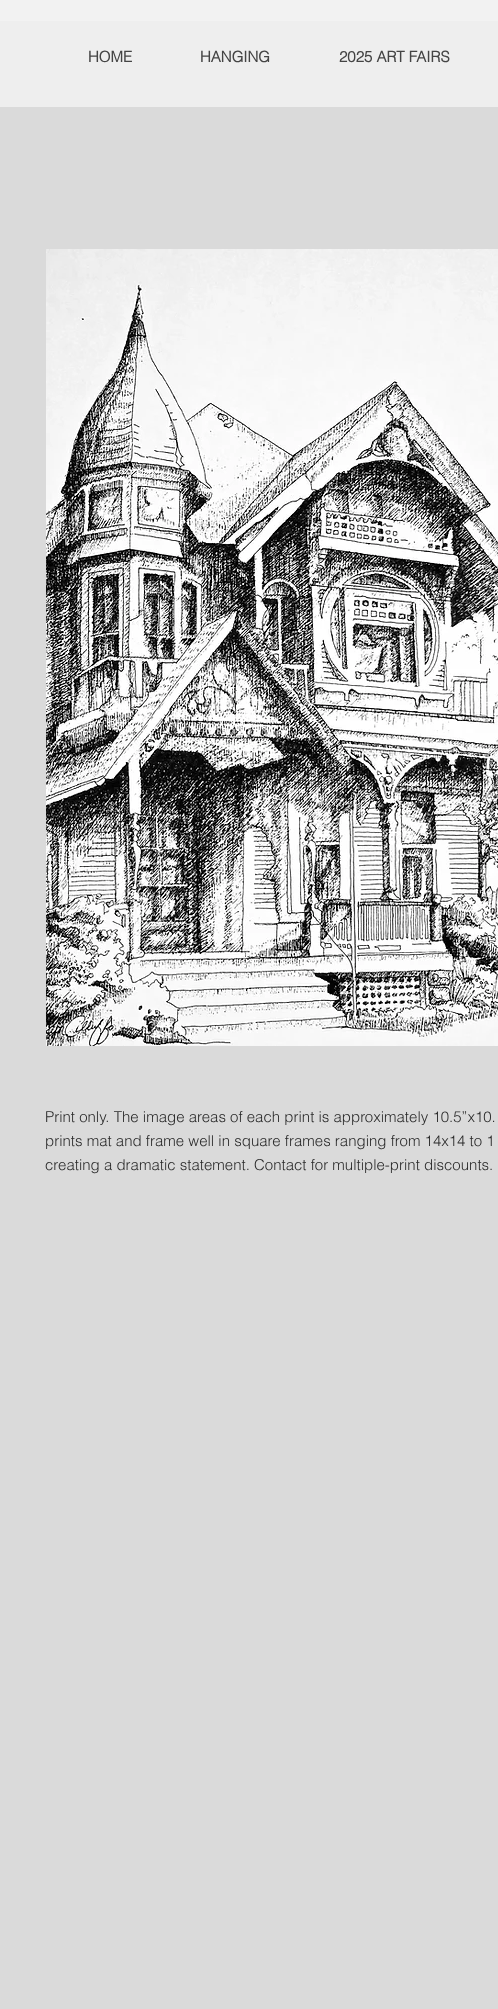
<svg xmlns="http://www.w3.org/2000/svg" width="498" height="2009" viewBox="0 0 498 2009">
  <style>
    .t1 { font: bold 15px helvetica; fill: #444; }
    .t2 { font: 300 15px helvetica; fill: #2b2b2b; }
  </style>
  <rect width="100%" height="100%" fill="#dadada"/>
  <rect x="0" y="0" width="498" height="107" fill="#eee"/>
  <image x="0" y="0" width="498" height="21" href="images/1.png"/>
  <text x="88" y="62" class="t1">HOME</text>
  <text x="200" y="62" class="t1">HANGING</text>
  <text x="339" y="62" class="t1">2025 ART FAIRS</text>
  <image x="46" y="249" width="452" height="797" href="images/2.png"/>
  <text x="45" y="1122" class="t2">Print only. The image areas of each print is approximately 10.5”x10.</text>
  <text x="45" y="1146" class="t2">prints mat and frame well in square frames ranging from 14x14 to 1</text>
  <text x="45" y="1170" class="t2">creating a dramatic statement. Contact for multiple-print discounts.</text>
</svg>
